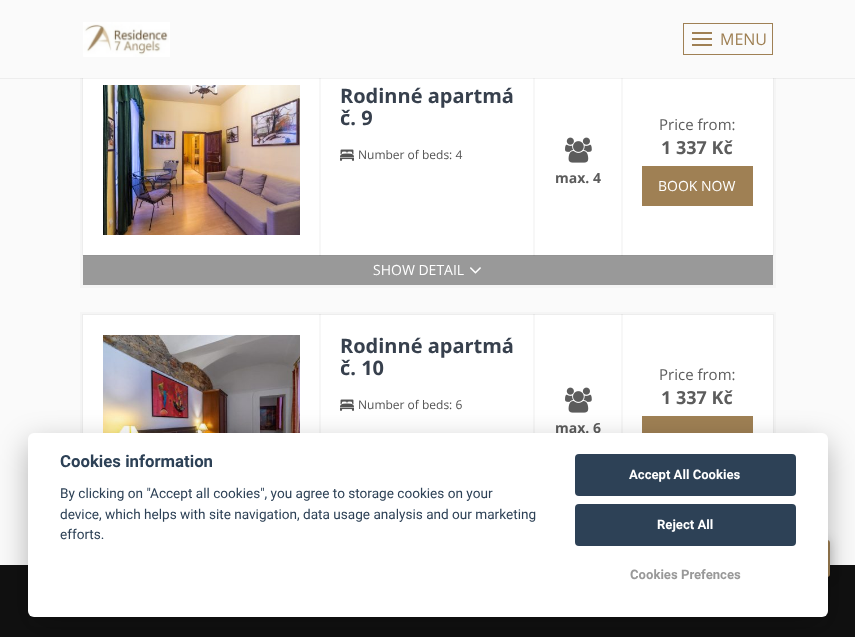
async function draw(canvas) {
  canvas.width = 855
  canvas.height = 637
  const ctx = canvas.getContext('2d')
  ctx.miterLimit = 4
  ctx.fontKerning = 'normal'
  async function loadImage(src) {
    const img = new Image()
    img.src = src
    await img.decode()
    return img
  }

  ctx.fillStyle = '#fafafa'
  ctx.fillRect(0, 0, 855, 637)
  ctx.strokeStyle = '#f5f5f5'
  ctx.lineWidth = 3
  ctx.strokeRect(81.5, 63.5, 693, 223)
  ctx.fillStyle = '#fff'
  ctx.fillRect(83, 78, 690, 177)
  ctx.fillStyle = '#999'
  ctx.fillRect(83, 255, 690, 30)
  ctx.strokeStyle = '#00000008'
  ctx.lineWidth = 1
  ctx.strokeRect(82.5, 64.5, 238, 191)
  ctx.strokeRect(319.5, 64.5, 215, 191)
  ctx.strokeRect(533.5, 64.5, 89, 191)
  ctx.strokeRect(621.5, 64.5, 152, 191)
  ctx.fillStyle = '#0000000d'
  ctx.filter = 'blur(0.5px)'
  ctx.beginPath()
  ctx.rect(0, 1, 855, 78)
  ctx.fill()
  ctx.filter = 'none'
  ctx.fillStyle = '#fafafa'
  ctx.fillRect(0, 1, 855, 77)
  ctx.drawImage(await loadImage('image0.png'), 83, 22, 87, 35)
  ctx.strokeStyle = '#9f8054'
  ctx.strokeRect(683.5, 23.5, 89, 31)
  ctx.fillStyle = '#9f8054'
  ctx.fillRect(692, 38, 20, 2)
  ctx.fillRect(692, 32, 20, 2)
  ctx.fillRect(692, 44, 20, 2)
  ctx.font = '16px Open Sans'
  ctx.fillText('MENU', 720, 45)
  ctx.drawImage(await loadImage('image1.png'), 103, 85, 197, 150)
  ctx.font = 'bold 20px Open Sans'
  ctx.fillStyle = '#37404d'
  ctx.fillText('Rodinné apartmá', 340, 103)
  ctx.fillText('č. 9', 340, 125)
  ctx.drawImage(await loadImage('image2.png'), 340, 149, 14, 12)
  ctx.font = '12px Open Sans'
  ctx.fillStyle = '#535353'
  ctx.fillText('Number of beds: 4', 358, 159)
  ctx.drawImage(await loadImage('image3.png'), 565, 137, 27, 26)
  ctx.font = 'bold 14px Open Sans'
  ctx.fillStyle = '#5c5c5c'
  ctx.fillText('max. 4', 555, 183)
  ctx.font = '15px Open Sans'
  ctx.fillText('Price from:', 659, 130)
  ctx.font = 'bold 18px Open Sans'
  ctx.fillText('1 337 Kč', 661, 154)
  ctx.fillStyle = '#9f8054'
  ctx.fillRect(642, 166, 111, 40)
  ctx.font = '14px Open Sans'
  ctx.fillStyle = '#fff'
  ctx.fillText('BOOK NOW', 658, 191)
  ctx.fillText('SHOW DETAIL', 373, 275)
  ctx.drawImage(await loadImage('image4.png'), 470, 267, 11, 7)
  ctx.strokeStyle = '#f5f5f5'
  ctx.lineWidth = 3
  ctx.strokeRect(81.5, 313.5, 693, 223)
  ctx.fillRect(83, 315, 690, 118)
  ctx.strokeStyle = '#00000008'
  ctx.lineWidth = 1
  ctx.strokeRect(82.5, 314.5, 238, 191)
  ctx.drawImage(await loadImage('image5.png'), 103, 335, 197, 98)
  ctx.strokeRect(319.5, 314.5, 215, 191)
  ctx.font = 'bold 20px Open Sans'
  ctx.fillStyle = '#37404d'
  ctx.fillText('Rodinné apartmá', 340, 353)
  ctx.fillText('č. 10', 340, 375)
  ctx.drawImage(await loadImage('image2.png'), 340, 399, 14, 12)
  ctx.font = '12px Open Sans'
  ctx.fillStyle = '#535353'
  ctx.fillText('Number of beds: 6', 358, 409)
  ctx.strokeRect(533.5, 314.5, 89, 191)
  ctx.strokeRect(621.5, 314.5, 152, 191)
  ctx.font = '15px Open Sans'
  ctx.fillStyle = '#5c5c5c'
  ctx.fillText('Price from:', 659, 380)
  ctx.font = 'bold 18px Open Sans'
  ctx.fillText('1 337 Kč', 661, 404)
  ctx.fillStyle = '#9f8054'
  ctx.fillRect(642, 416, 111, 17)
  ctx.drawImage(await loadImage('image3.png'), 565, 387, 27, 26)
  ctx.font = 'bold 14px Open Sans'
  ctx.fillStyle = '#5c5c5c'
  ctx.fillText('max. 6', 555, 433)
  ctx.fillStyle = '#111'
  ctx.fillRect(0, 565, 855, 72)
  ctx.fillStyle = '#00000033'
  ctx.filter = 'blur(6px)'
  ctx.beginPath()
  ctx.roundRect(796, 540, 34, 37, 3)
  ctx.fill()
  ctx.filter = 'none'
  ctx.fillStyle = '#9f8054'
  ctx.beginPath()
  ctx.roundRect(796, 540, 34, 37, 3)
  ctx.fill()
  ctx.fillStyle = '#02020347'
  ctx.filter = 'blur(15px)'
  ctx.beginPath()
  ctx.roundRect(28, 443, 800, 184, 6)
  ctx.fill()
  ctx.filter = 'none'
  ctx.fillStyle = '#fff'
  ctx.beginPath()
  ctx.roundRect(28, 433, 800, 184, 6)
  ctx.fill()
  ctx.font = 'bold 16.75px Roboto'
  ctx.fillStyle = '#2d4156'
  ctx.fillText('Cookies information', 60, 467)
  ctx.font = '13.6px Roboto'
  ctx.fillText('By clicking on "Accept all cookies", you agree to storage cookies on your', 60, 498)
  ctx.fillText('device, which helps with site navigation, data usage analysis and our marketing', 60, 519)
  ctx.fillText('efforts.', 60, 539)
  ctx.beginPath()
  ctx.roundRect(575, 454, 221, 42, 4)
  ctx.fill()
  ctx.font = 'bold 13.1px Roboto'
  ctx.fillStyle = '#fff'
  ctx.fillText('Accept All Cookies', 629, 479)
  ctx.fillStyle = '#2d4156'
  ctx.beginPath()
  ctx.roundRect(575, 504, 221, 42, 4)
  ctx.fill()
  ctx.fillStyle = '#fff'
  ctx.fillText('Reject All', 657, 529)
  ctx.fillStyle = '#999'
  ctx.fillText('Cookies Prefences', 630, 579)
}

draw(document.querySelector('canvas'))
